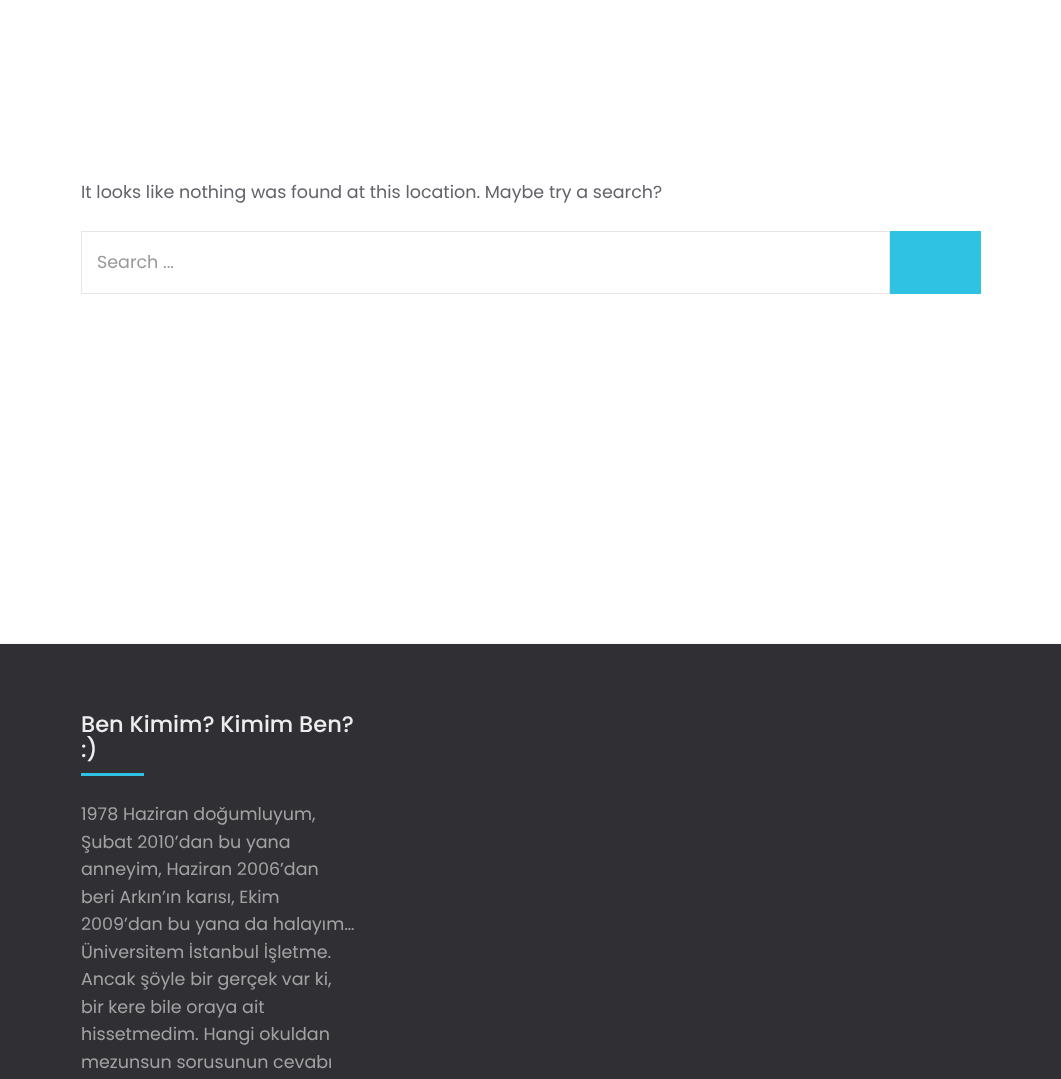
async function draw(canvas) {
  canvas.width = 1061
  canvas.height = 1079
  const ctx = canvas.getContext('2d')
  ctx.miterLimit = 4
  ctx.fontKerning = 'normal'

  ctx.fillStyle = '#fff'
  ctx.fillRect(0, 0, 1061, 1079)
  ctx.font = '17.5px Poppins'
  ctx.fillStyle = '#63636a'
  ctx.fillText('It looks like nothing was found at this location. Maybe try a search?', 81, 198)
  ctx.strokeStyle = '#e5e6e1'
  ctx.strokeRect(81.5, 231.5, 808, 62)
  ctx.fillStyle = '#999'
  ctx.fillText('Search ...', 97, 268)
  ctx.fillStyle = '#2fc2e3'
  ctx.fillRect(890, 231, 91, 63)
  ctx.fillStyle = '#00000021'
  ctx.filter = 'blur(2px)'
  ctx.beginPath()
  ctx.rect(0, 645, 1061, 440)
  ctx.fill()
  ctx.filter = 'none'
  ctx.fillStyle = '#302f34'
  ctx.fillRect(0, 644, 1061, 435)
  ctx.font = '500 22.5px Poppins'
  ctx.fillStyle = '#ededed'
  ctx.fillText('Ben Kimim? Kimim Ben?', 81, 732)
  ctx.fillText(':)', 81, 757)
  ctx.fillStyle = '#2fc2e3'
  ctx.fillRect(81, 773, 63, 3)
  ctx.font = '17.5px Poppins'
  ctx.fillStyle = '#a2a2a2'
  ctx.fillText('1978 Haziran doğumluyum,', 81, 820)
  ctx.fillText('Şubat 2010’dan bu yana', 81, 848)
  ctx.fillText('anneyim, Haziran 2006’dan', 81, 875)
  ctx.fillText('beri Arkın’ın karısı, Ekim', 81, 903)
  ctx.fillText('2009’dan bu yana da halayım…', 81, 930)
  ctx.fillText('Üniversitem İstanbul İşletme.', 81, 958)
  ctx.fillText('Ancak şöyle bir gerçek var ki,', 81, 985)
  ctx.fillText('bir kere bile oraya ait', 81, 1013)
  ctx.fillText('hissetmedim. Hangi okuldan', 81, 1040)
  ctx.fillText('mezunsun sorusunun cevabı', 81, 1068)
}

draw(document.querySelector('canvas'))
